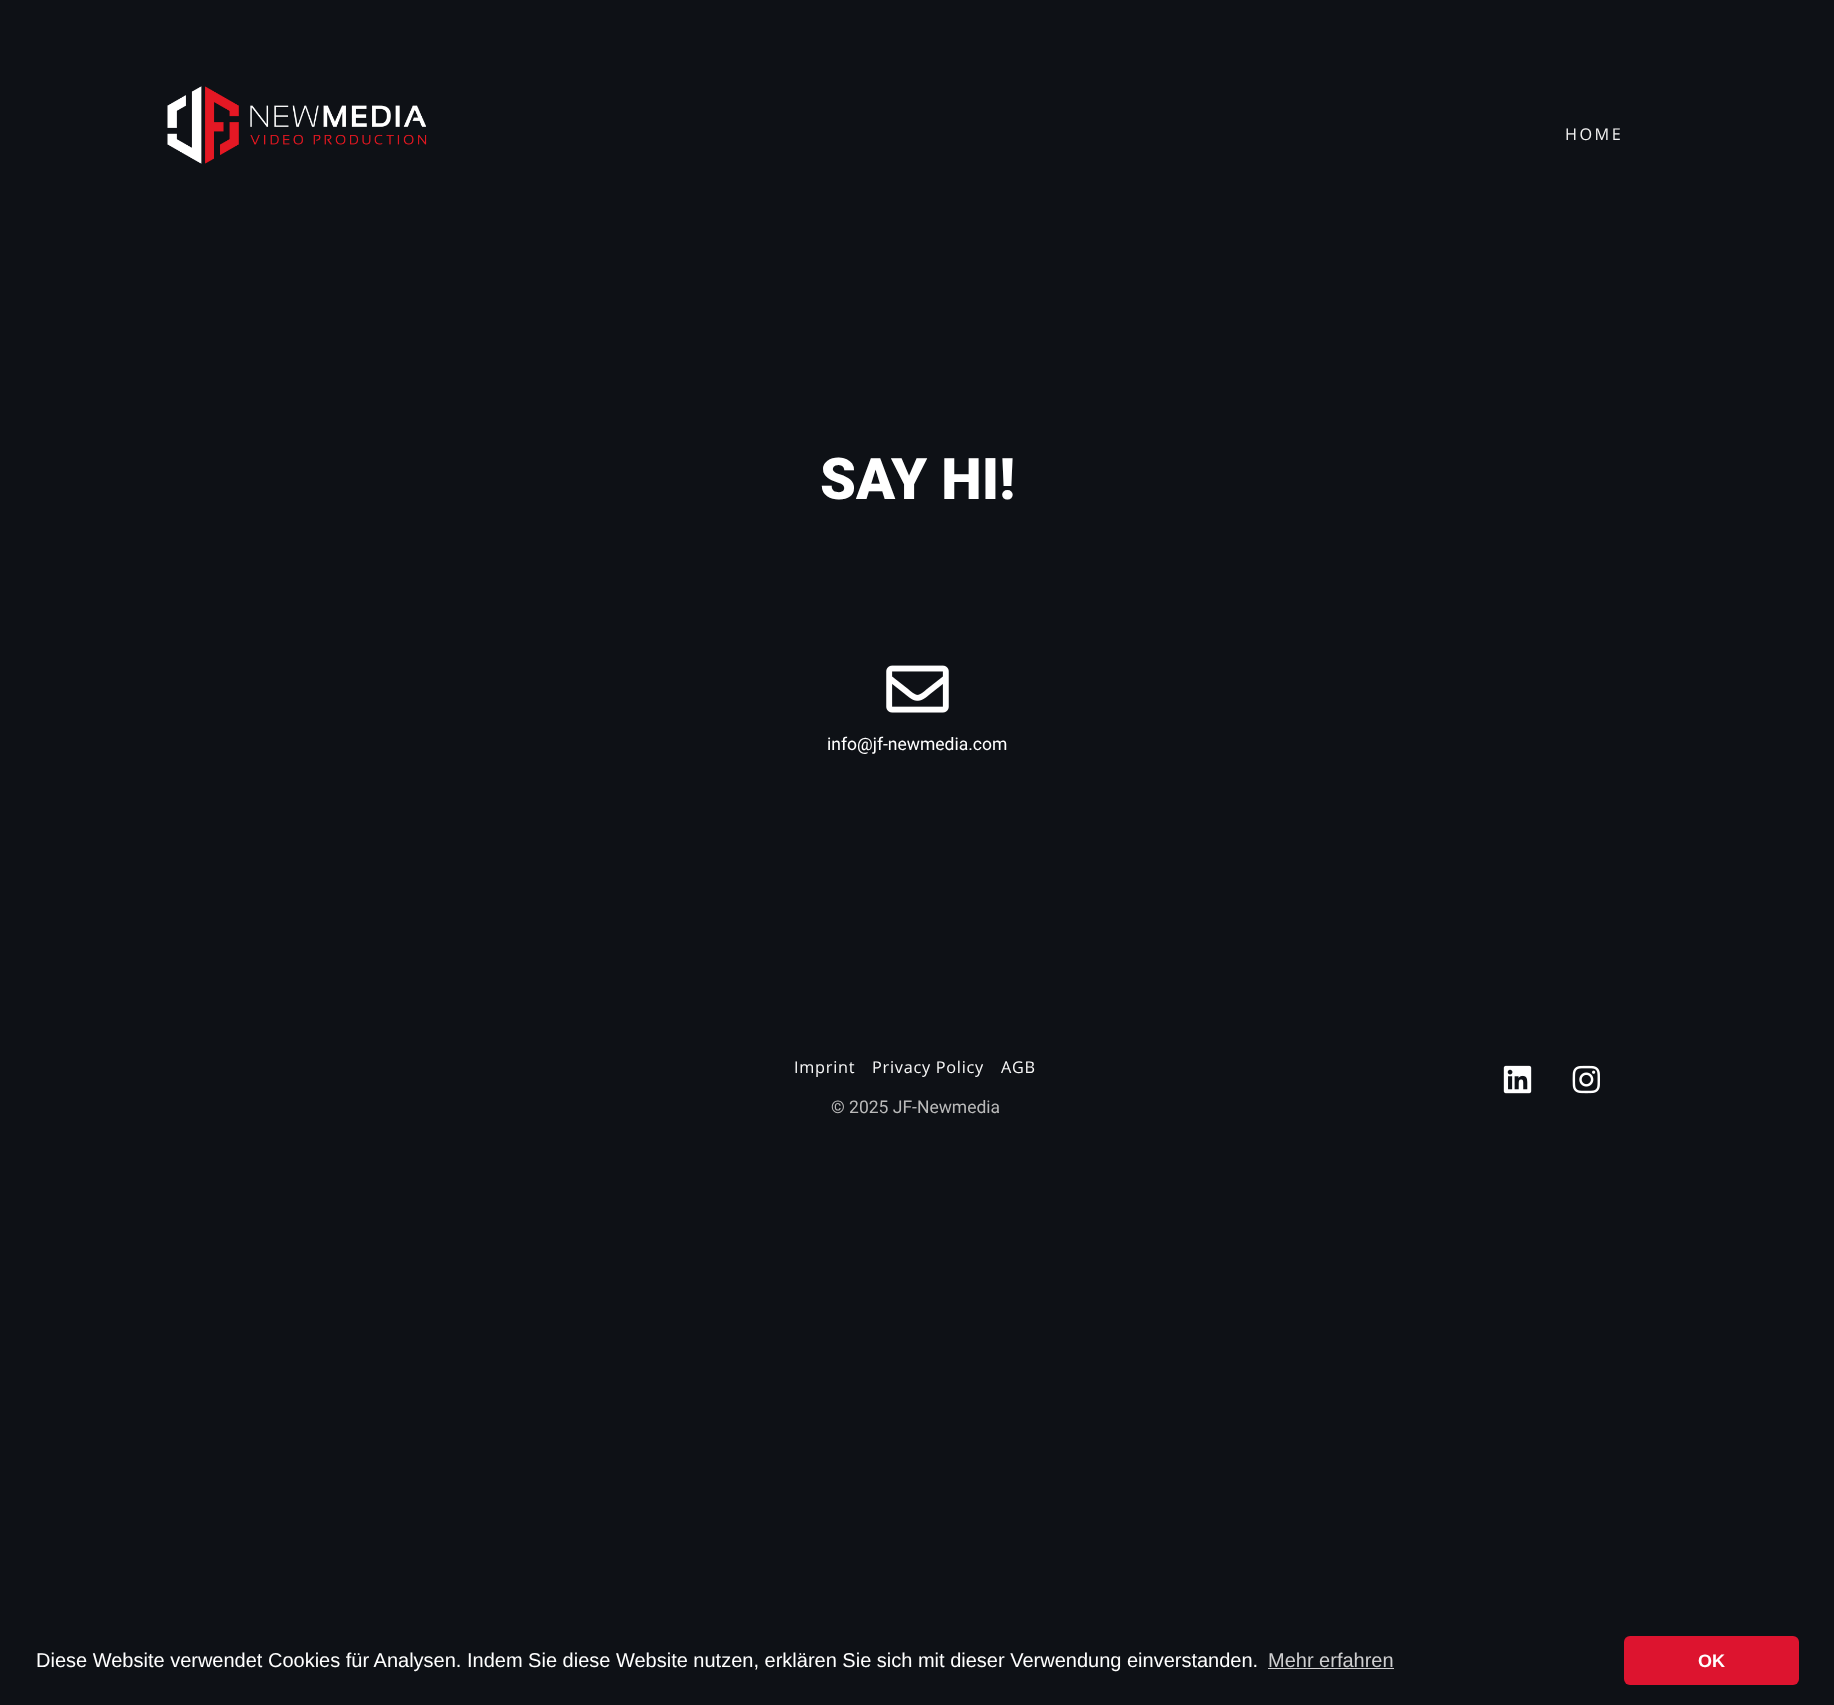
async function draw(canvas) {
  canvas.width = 1834
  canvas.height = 1705
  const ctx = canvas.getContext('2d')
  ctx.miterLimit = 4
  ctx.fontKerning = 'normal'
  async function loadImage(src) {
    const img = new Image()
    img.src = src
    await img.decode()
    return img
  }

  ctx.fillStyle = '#0e1116'
  ctx.fillRect(0, 0, 1834, 1705)
  ctx.drawImage(await loadImage('image0.png'), 167, 86, 260, 78)
  ctx.letterSpacing = '2.5px'
  ctx.font = '16.25px Open Sans'
  ctx.fillStyle = '#f2f2f2'
  ctx.fillText('HOME', 1565, 140)
  ctx.letterSpacing = '0px'
  ctx.font = '900 57.5px Roboto'
  ctx.fillStyle = '#fff'
  ctx.fillText('SAY HI!', 820, 499)
  ctx.drawImage(await loadImage('image1.png'), 886, 665, 63, 48)
  ctx.font = '17.5px Roboto'
  ctx.fillText('info@jf-newmedia.com', 827, 750)
  ctx.letterSpacing = '0.75px'
  ctx.font = '16.25px Open Sans'
  ctx.fillStyle = '#f9f9f9'
  ctx.fillText('Imprint', 794, 1073)
  ctx.fillText('Privacy Policy', 872, 1073)
  ctx.fillText('AGB', 1001, 1073)
  ctx.letterSpacing = '0px'
  ctx.font = '17.5px Roboto'
  ctx.fillStyle = '#bababa'
  ctx.fillText('© 2025 JF-Newmedia', 831, 1113)
  ctx.drawImage(await loadImage('image2.png'), 1503, 1065, 29, 29)
  ctx.drawImage(await loadImage('image3.png'), 1572, 1065, 28, 29)
  ctx.font = '20px Liberation Sans'
  ctx.fillStyle = '#fff'
  ctx.fillText('Diese Website verwendet Cookies für Analysen. Indem Sie diese Website nutzen, erklären Sie sich mit dieser Verwendung einverstanden.', 36, 1667)
  ctx.fillStyle = '#cfcfd0'
  ctx.fillText('Mehr erfahren', 1268, 1667)
  ctx.fillRect(1268, 1668, 126, 1)
  ctx.fillStyle = '#dd142f'
  ctx.beginPath()
  ctx.roundRect(1624, 1636, 175, 49, 6)
  ctx.fill()
  ctx.font = 'bold 18px Liberation Sans'
  ctx.fillStyle = '#fff'
  ctx.fillText('OK', 1698, 1667)
}

draw(document.querySelector('canvas'))
